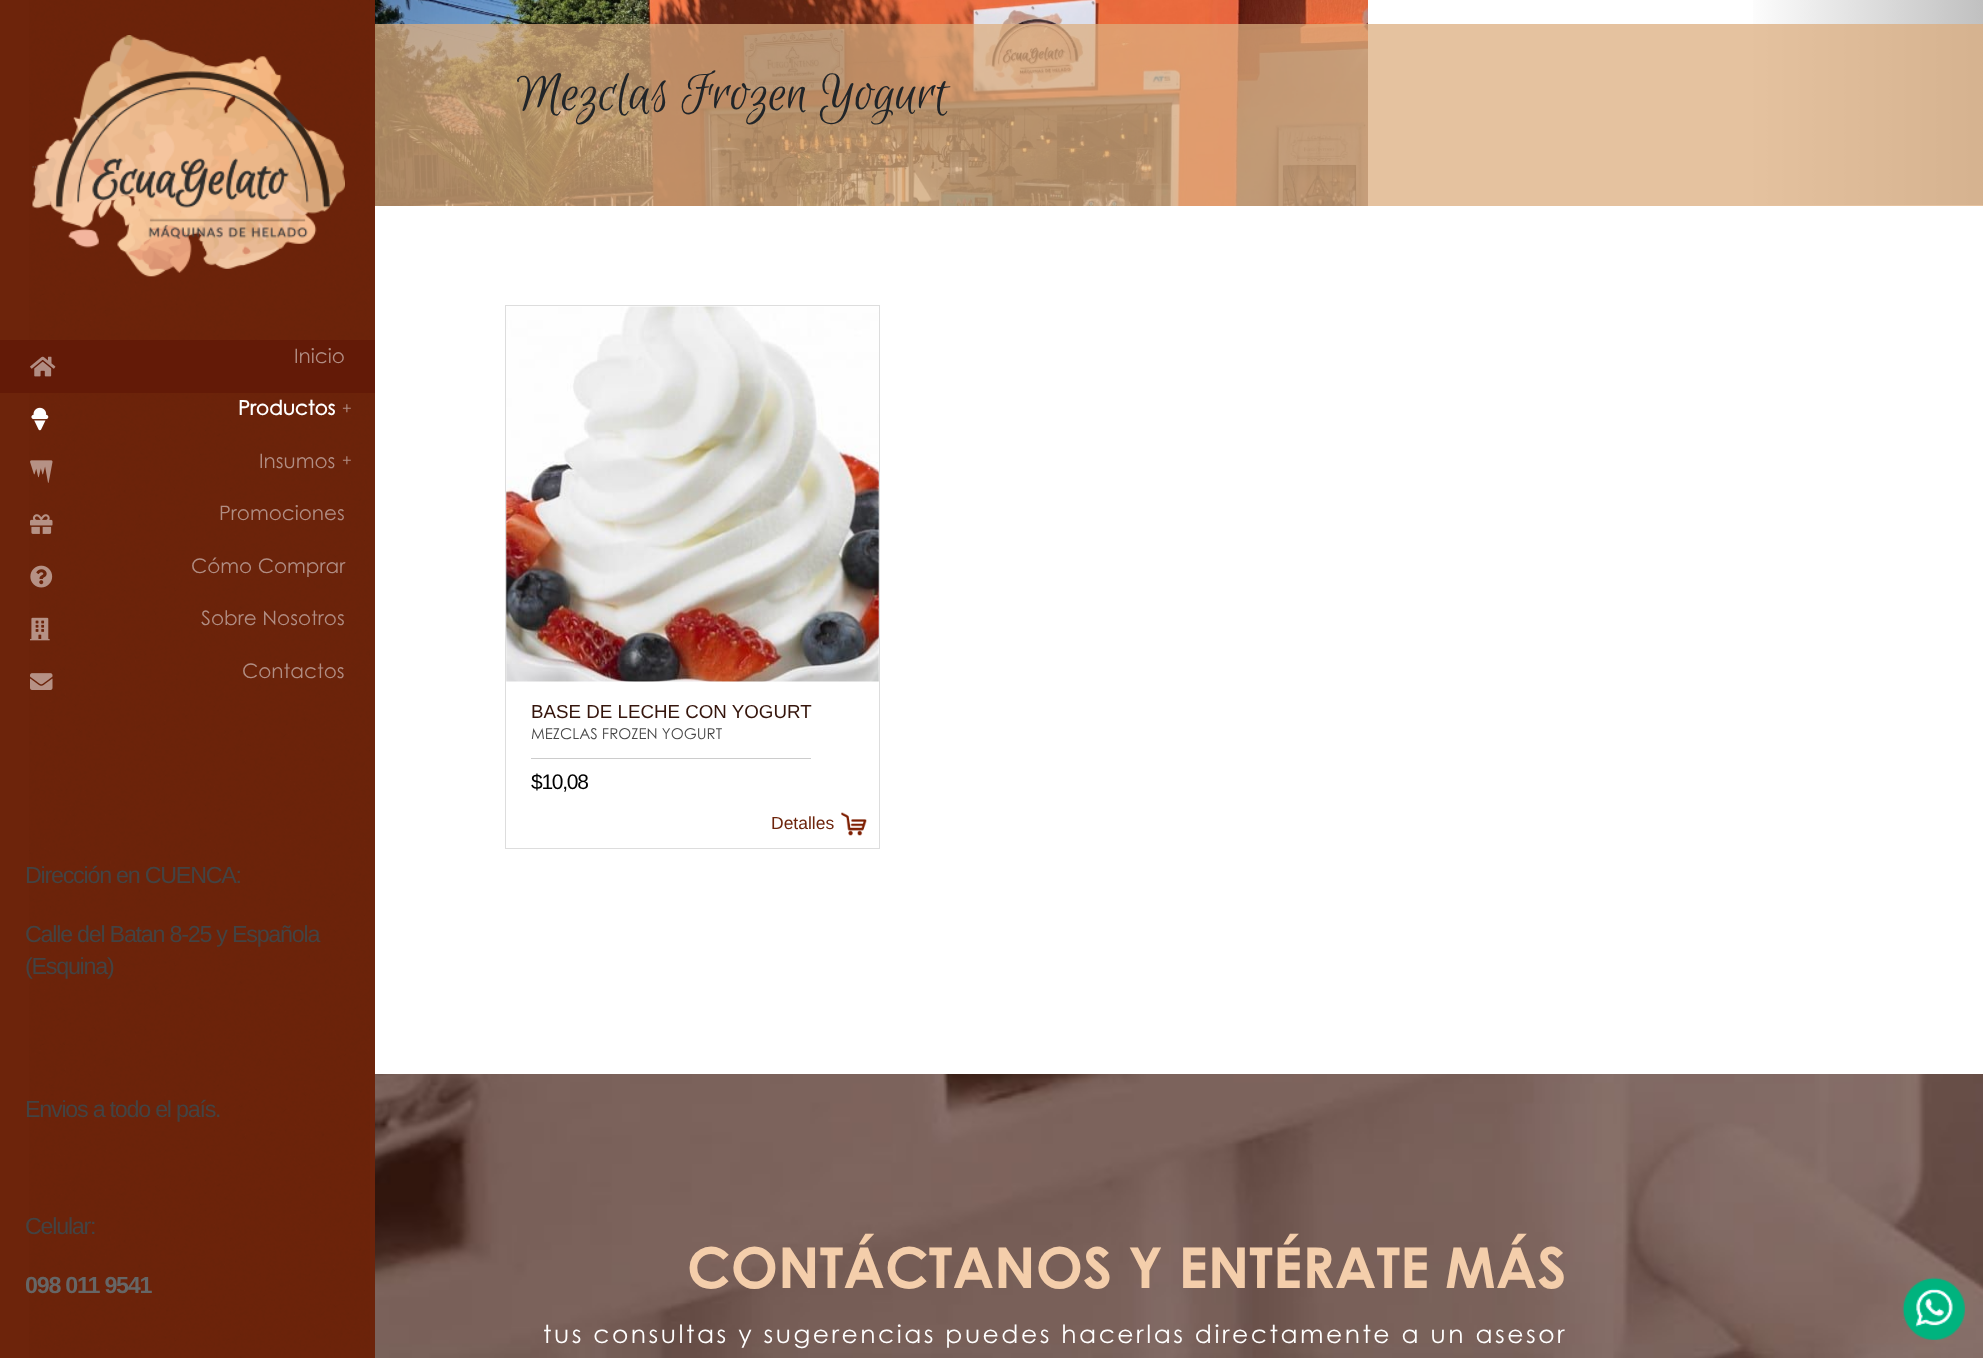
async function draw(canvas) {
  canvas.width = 1983
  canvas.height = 1358
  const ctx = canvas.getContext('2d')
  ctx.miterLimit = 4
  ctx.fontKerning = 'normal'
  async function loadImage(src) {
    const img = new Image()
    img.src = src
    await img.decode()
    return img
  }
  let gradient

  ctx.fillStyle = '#fff'
  ctx.fillRect(0, 0, 1983, 1358)
  ctx.fillStyle = '#6d240b'
  ctx.fillRect(0, 0, 375, 1358)
  ctx.drawImage(await loadImage('image0.png'), 29, 0, 341, 1358)
  ctx.beginPath()
  ctx.moveTo(32.5, 167)
  ctx.lineTo(345, 167)
  ctx.strokeStyle = '#80808080'
  ctx.lineWidth = 1.2
  ctx.setLineDash([1.25, 1.25])
  ctx.stroke()
  ctx.drawImage(await loadImage('image1.png'), 32, 35, 313, 242)
  ctx.fillStyle = '#631a07'
  ctx.fillRect(0, 340, 375, 53)
  ctx.drawImage(await loadImage('image2.png'), 30, 356, 26, 21)
  ctx.font = '20px Century Gothic'
  ctx.fillStyle = '#b18d83'
  ctx.fillText('Inicio', 294, 363)
  ctx.drawImage(await loadImage('image3.png'), 31, 407, 18, 24)
  ctx.font = 'bold 20px "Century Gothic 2"'
  ctx.fillStyle = '#fff'
  ctx.fillText('Productos', 238, 415)
  ctx.font = '16px Century Gothic'
  ctx.fillStyle = '#b18d83'
  ctx.fillText('+', 342, 414)
  ctx.drawImage(await loadImage('image4.png'), 30, 460, 23, 23)
  ctx.font = '20px Century Gothic'
  ctx.fillText('Insumos', 259, 468)
  ctx.font = '16px Century Gothic'
  ctx.fillText('+', 342, 466)
  ctx.drawImage(await loadImage('image5.png'), 30, 514, 23, 20)
  ctx.font = '20px Century Gothic'
  ctx.fillText('Promociones', 219, 520)
  ctx.drawImage(await loadImage('image6.png'), 30, 565, 23, 23)
  ctx.fillText('Cómo Comprar', 191, 573)
  ctx.drawImage(await loadImage('image7.png'), 30, 617, 20, 24)
  ctx.fillText('Sobre Nosotros', 201, 625)
  ctx.fillText('Contactos', 242, 678)
  ctx.drawImage(await loadImage('image8.png'), 30, 673, 23, 17)
  ctx.letterSpacing = '-1.25px'
  ctx.font = '23.3px Liberation Sans'
  ctx.fillStyle = '#434343'
  ctx.fillText('Dirección en CUENCA:', 25, 883)
  ctx.fillText('Calle del Batan 8-25 y Española', 25, 942)
  ctx.fillText('(Esquina)', 25, 974)
  ctx.fillText('Envios a todo el país.', 25, 1117)
  ctx.fillText('Celular:', 25, 1234)
  ctx.font = 'bold 23.3px Liberation Sans'
  ctx.fillStyle = '#666'
  ctx.fillText('098 011 9541', 25, 1293)
  ctx.drawImage(await loadImage('image9.png'), 375, 0, 993, 206)
  gradient = ctx.createLinearGradient(1743, 268, 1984, 268)
  gradient.addColorStop(0, '#fff')
  gradient.addColorStop(1, '#c0c0c0')
  ctx.fillStyle = gradient
  ctx.fillRect(1753, 0, 230, 205)
  ctx.fillStyle = '#dcae7fbf'
  ctx.fillRect(375, 24, 1608, 182)
  ctx.letterSpacing = '0px'
  ctx.font = '58px Euphoria Script'
  ctx.fillStyle = '#212529'
  ctx.fillText('Mezclas Frozen Yogurt', 517, 109)
  ctx.strokeStyle = '#ddd'
  ctx.lineWidth = 1
  ctx.setLineDash([])
  ctx.strokeRect(505.5, 305.5, 374, 543)
  ctx.drawImage(await loadImage('image10.png'), 506, 306, 373, 376)
  ctx.font = '18.75px Liberation Sans'
  ctx.fillStyle = '#35150c'
  ctx.fillText('BASE DE LECHE CON YOGURT', 531, 718)
  ctx.font = '15px Century Gothic'
  ctx.fillStyle = '#494949'
  ctx.fillText('MEZCLAS FROZEN YOGURT', 531, 739)
  ctx.fillStyle = '#ccc'
  ctx.fillRect(531, 758, 280, 1)
  ctx.letterSpacing = '-1.25px'
  ctx.font = '21px Liberation Sans'
  ctx.fillStyle = '#000'
  ctx.fillText('$10,08', 531, 789)
  ctx.letterSpacing = '0px'
  ctx.font = '17.5px Liberation Sans'
  ctx.fillStyle = '#6d240b'
  ctx.fillText('Detalles', 771, 829)
  ctx.drawImage(await loadImage('image11.png'), 841, 812, 26, 24)
  ctx.drawImage(await loadImage('image12.png'), 375, 1074, 1608, 284)
  ctx.font = 'bold 56.25px Century Gothic'
  ctx.fillStyle = '#f4ceab'
  ctx.fillText('CONTÁCTANOS Y ENTÉRATE MÁS', 687, 1288)
  ctx.letterSpacing = '2.5px'
  ctx.font = '25px Century Gothic'
  ctx.fillStyle = '#fff'
  ctx.fillText('tus consultas y sugerencias puedes hacerlas directamente a un asesor', 543, 1343)
  ctx.beginPath()
  ctx.moveTo(1902.5, 1319.5)
  ctx.lineTo(1965, 1319.5)
  ctx.strokeStyle = '#80808080'
  ctx.lineWidth = 1.2
  ctx.setLineDash([1.25, 1.25])
  ctx.stroke()
  ctx.drawImage(await loadImage('image13.png'), 1902, 1277, 63, 63)
}

draw(document.querySelector('canvas'))
